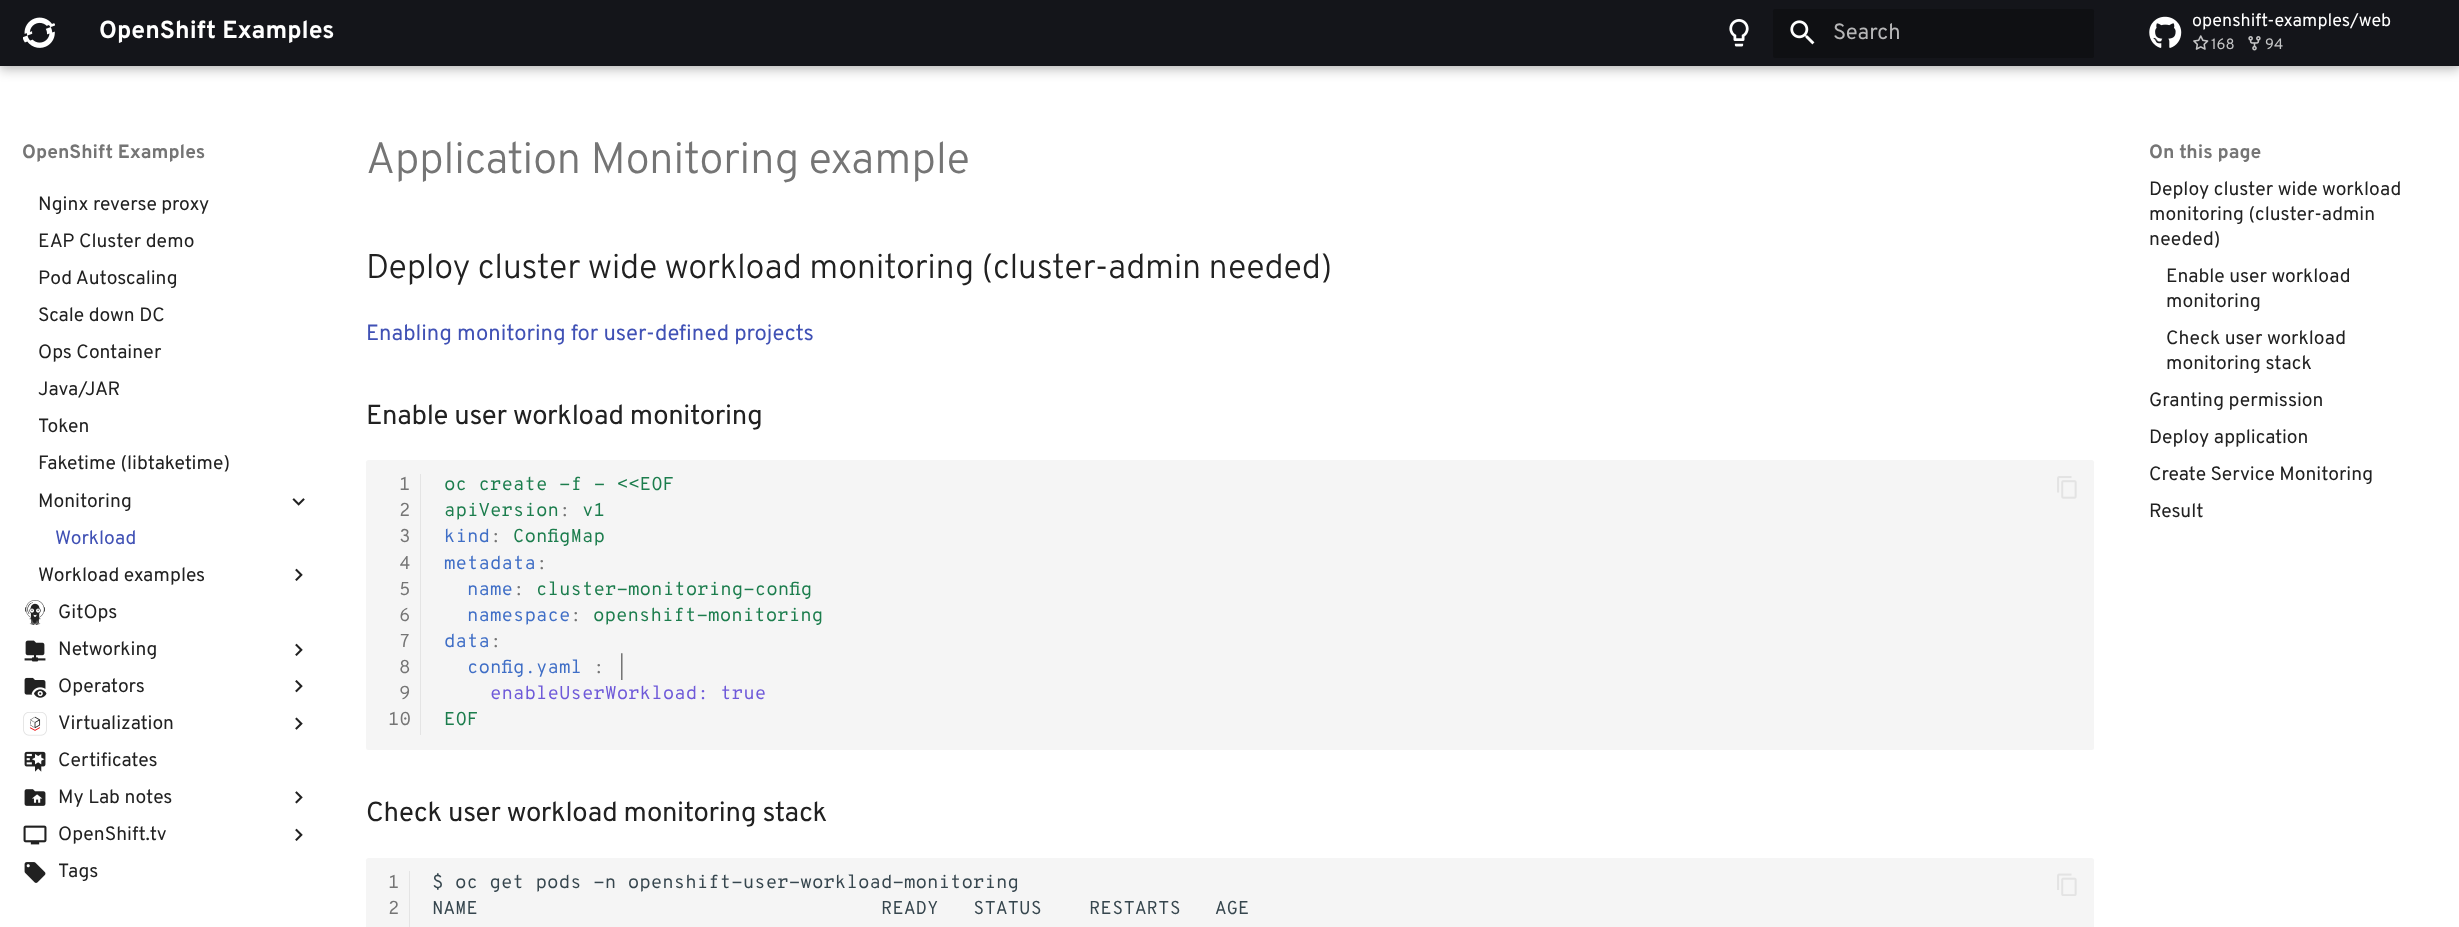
async function draw(canvas) {
  canvas.width = 2459
  canvas.height = 927
  const ctx = canvas.getContext('2d')
  ctx.miterLimit = 4
  ctx.fontKerning = 'normal'
  async function loadImage(src) {
    const img = new Image()
    img.src = src
    await img.decode()
    return img
  }

  ctx.fillStyle = '#fff'
  ctx.fillRect(0, 0, 2459, 927)
  ctx.fillStyle = '#00000033'
  ctx.filter = 'blur(5.5px)'
  ctx.beginPath()
  ctx.rect(0, 5, 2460, 66)
  ctx.fill()
  ctx.filter = 'none'
  ctx.fillStyle = '#0000001a'
  ctx.filter = 'blur(3px)'
  ctx.beginPath()
  ctx.rect(0, 0, 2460, 66)
  ctx.fill()
  ctx.filter = 'none'
  ctx.fillStyle = '#14151a'
  ctx.fillRect(0, 0, 2459, 66)
  ctx.drawImage(await loadImage('image0.png'), 23, 17, 32, 31)
  ctx.font = 'bold 24.75px Overpass'
  ctx.fillStyle = '#fff'
  ctx.fillText('OpenShift Examples', 99, 38)
  ctx.drawImage(await loadImage('image1.png'), 1729, 19, 20, 28)
  ctx.fillStyle = '#0f1013'
  ctx.beginPath()
  ctx.roundRect(1773, 9, 321, 49, 2.5)
  ctx.fill()
  ctx.drawImage(await loadImage('image2.png'), 1790, 20, 25, 25)
  ctx.font = '22px Overpass'
  ctx.fillStyle = '#b7b7b8'
  ctx.fillText('Search', 1833, 39)
  ctx.drawImage(await loadImage('image3.png'), 2149, 16, 33, 32)
  ctx.font = '17.9px Overpass'
  ctx.fillStyle = '#fff'
  ctx.fillText('openshift-examples/web', 2192, 26)
  ctx.drawImage(await loadImage('image4.png'), 2193, 35, 16, 15)
  ctx.font = '15px Overpass'
  ctx.fillStyle = '#c4c5c6'
  ctx.fillText('168', 2211, 49)
  ctx.drawImage(await loadImage('image5.png'), 2248, 36, 13, 15)
  ctx.fillText('94', 2265, 49)
  ctx.font = 'bold 19.25px Overpass'
  ctx.fillStyle = '#757575'
  ctx.fillText('OpenShift Examples', 22, 158)
  ctx.font = '19.25px Overpass'
  ctx.fillStyle = '#212121'
  ctx.fillText('Nginx reverse proxy', 38, 210)
  ctx.fillText('EAP Cluster demo', 38, 247)
  ctx.fillText('Pod Autoscaling', 38, 284)
  ctx.fillText('Scale down DC', 38, 321)
  ctx.fillText('Ops Container', 38, 358)
  ctx.fillText('Java/JAR', 38, 395)
  ctx.fillText('Token', 38, 432)
  ctx.fillText('Faketime (libtaketime)', 38, 469)
  ctx.fillText('Monitoring', 38, 507)
  ctx.drawImage(await loadImage('image6.png'), 292, 498, 13, 8)
  ctx.fillStyle = '#4051b5'
  ctx.fillText('Workload', 55, 544)
  ctx.fillStyle = '#212121'
  ctx.fillText('Workload examples', 38, 581)
  ctx.drawImage(await loadImage('image7.png'), 295, 568, 8, 13)
  ctx.drawImage(await loadImage('image8.png'), 25, 600, 20, 25)
  ctx.fillText('GitOps', 58, 618)
  ctx.drawImage(await loadImage('image9.png'), 24, 640, 22, 22)
  ctx.fillText('Networking', 58, 655)
  ctx.drawImage(await loadImage('image7.png'), 295, 643, 8, 13)
  ctx.drawImage(await loadImage('image10.png'), 24, 677, 23, 21)
  ctx.fillText('Operators', 58, 692)
  ctx.drawImage(await loadImage('image11.png'), 295, 680, 8, 13)
  ctx.drawImage(await loadImage('image12.png'), 23, 712, 24, 24)
  ctx.fillText('Virtualization', 58, 729)
  ctx.drawImage(await loadImage('image13.png'), 295, 717, 8, 13)
  ctx.drawImage(await loadImage('image14.png'), 24, 751, 22, 21)
  ctx.fillText('Certificates', 58, 766)
  ctx.drawImage(await loadImage('image15.png'), 24, 789, 22, 17)
  ctx.fillText('My Lab notes', 58, 803)
  ctx.drawImage(await loadImage('image16.png'), 295, 791, 8, 13)
  ctx.drawImage(await loadImage('image17.png'), 23, 825, 24, 20)
  ctx.fillText('OpenShift.tv', 58, 840)
  ctx.drawImage(await loadImage('image7.png'), 295, 828, 8, 13)
  ctx.drawImage(await loadImage('image18.png'), 24, 862, 22, 21)
  ctx.fillText('Tags', 58, 877)
  ctx.letterSpacing = '-0.45px'
  ctx.font = '300 44px Overpass'
  ctx.fillStyle = '#757575'
  ctx.fillText('Application Monitoring example', 366, 173)
  ctx.letterSpacing = '-0.35px'
  ctx.font = '300 34.4px Overpass'
  ctx.fillStyle = '#212121'
  ctx.fillText('Deploy cluster wide workload monitoring (cluster-admin needed)', 366, 278)
  ctx.letterSpacing = '0px'
  ctx.font = '22px Overpass'
  ctx.fillStyle = '#4051b5'
  ctx.fillText('Enabling monitoring for user-defined projects', 366, 340)
  ctx.letterSpacing = '-0.3px'
  ctx.font = '27.5px Overpass'
  ctx.fillStyle = '#212121'
  ctx.fillText('Enable user workload monitoring', 366, 424)
  ctx.fillStyle = '#f5f5f5'
  ctx.beginPath()
  ctx.roundRect(366, 460, 55, 290, [2.5, 0, 0, 2.5])
  ctx.fill()
  ctx.fillStyle = '#e4e4e4'
  ctx.fillRect(420, 474, 1, 261)
  ctx.letterSpacing = '0px'
  ctx.font = '18.7px Overpass Mono'
  ctx.fillStyle = '#757575'
  ctx.fillText('1', 399, 490)
  ctx.fillText('2', 399, 516)
  ctx.fillText('3', 399, 542)
  ctx.fillText('4', 399, 569)
  ctx.fillText('5', 399, 595)
  ctx.fillText('6', 399, 621)
  ctx.fillText('7', 399, 647)
  ctx.fillText('8', 399, 673)
  ctx.fillText('9', 399, 699)
  ctx.fillText('10', 388, 725)
  ctx.fillStyle = '#f5f5f5'
  ctx.beginPath()
  ctx.roundRect(421, 460, 1673, 290, [0, 2.5, 2.5, 0])
  ctx.fill()
  ctx.fillStyle = '#1c7d4d'
  ctx.fillText('oc create -f - <<EOF', 444, 490)
  ctx.fillText('apiVersion', 444, 516)
  ctx.fillStyle = '#757575'
  ctx.fillText(':', 559, 516)
  ctx.fillStyle = '#1c7d4d'
  ctx.fillText('v1', 582, 516)
  ctx.fillStyle = '#3f6ec6'
  ctx.fillText('kind', 444, 542)
  ctx.fillStyle = '#757575'
  ctx.fillText(':', 490, 542)
  ctx.fillStyle = '#1c7d4d'
  ctx.fillText('ConfigMap', 513, 542)
  ctx.fillStyle = '#3f6ec6'
  ctx.fillText('metadata', 444, 569)
  ctx.fillStyle = '#757575'
  ctx.fillText(':', 536, 569)
  ctx.fillStyle = '#3f6ec6'
  ctx.fillText('name', 467, 595)
  ctx.fillStyle = '#757575'
  ctx.fillText(':', 513, 595)
  ctx.fillStyle = '#1c7d4d'
  ctx.fillText('cluster-monitoring-config', 536, 595)
  ctx.fillStyle = '#3f6ec6'
  ctx.fillText('namespace', 467, 621)
  ctx.fillStyle = '#757575'
  ctx.fillText(':', 570, 621)
  ctx.fillStyle = '#1c7d4d'
  ctx.fillText('openshift-monitoring', 593, 621)
  ctx.fillStyle = '#3f6ec6'
  ctx.fillText('data', 444, 647)
  ctx.fillStyle = '#757575'
  ctx.fillText(':', 490, 647)
  ctx.fillStyle = '#3f6ec6'
  ctx.fillText('config.yaml', 467, 673)
  ctx.fillStyle = '#757575'
  ctx.fillText(': |', 593, 673)
  ctx.fillStyle = '#6e59d9'
  ctx.fillText('enableUserWorkload: true', 490, 699)
  ctx.fillStyle = '#1c7d4d'
  ctx.fillText('EOF', 444, 725)
  ctx.drawImage(await loadImage('image19.png'), 2057, 476, 20, 23)
  ctx.letterSpacing = '-0.3px'
  ctx.font = '27.5px Overpass'
  ctx.fillStyle = '#212121'
  ctx.fillText('Check user workload monitoring stack', 366, 821)
  ctx.fillStyle = '#f5f5f5'
  ctx.beginPath()
  ctx.moveTo(368.5, 858)
  ctx.lineTo(410, 858)
  ctx.lineTo(410, 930)
  ctx.lineTo(368.5, 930)
  ctx.bezierCurveTo(367, 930, 366, 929, 366, 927.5)
  ctx.lineTo(366, 860.5)
  ctx.bezierCurveTo(366, 859, 367, 858, 368.5, 858)
  ctx.closePath()
  ctx.fill()
  ctx.fillStyle = '#e4e4e4'
  ctx.fillRect(409, 871, 1, 56)
  ctx.letterSpacing = '0px'
  ctx.font = '18.7px Overpass Mono'
  ctx.fillStyle = '#757575'
  ctx.fillText('1', 388, 888)
  ctx.fillText('2', 388, 914)
  ctx.fillStyle = '#f5f5f5'
  ctx.beginPath()
  ctx.moveTo(410, 858)
  ctx.lineTo(2091.5, 858)
  ctx.bezierCurveTo(2093, 858, 2094, 859, 2094, 860.5)
  ctx.lineTo(2094, 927.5)
  ctx.bezierCurveTo(2094, 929, 2093, 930, 2091.5, 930)
  ctx.lineTo(410, 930)
  ctx.closePath()
  ctx.fill()
  ctx.fillStyle = '#36464e'
  ctx.fillText('$ oc get pods -n openshift-user-workload-monitoring', 432, 888)
  ctx.fillText('NAME', 432, 914)
  ctx.fillText('READY', 881, 914)
  ctx.fillText('STATUS', 973, 914)
  ctx.fillText('RESTARTS', 1089, 914)
  ctx.fillText('AGE', 1215, 914)
  ctx.drawImage(await loadImage('image20.png'), 2057, 873, 20, 23)
  ctx.save()
  ctx.beginPath()
  ctx.rect(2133, 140, 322, 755)
  ctx.clip()
  ctx.beginPath()
  ctx.moveTo(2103, 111)
  ctx.lineTo(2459, 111)
  ctx.lineTo(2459, 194)
  ctx.lineTo(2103, 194)
  ctx.closePath()
  ctx.moveTo(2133, 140)
  ctx.lineTo(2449, 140)
  ctx.lineTo(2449, 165)
  ctx.lineTo(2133, 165)
  ctx.closePath()
  ctx.clip('evenodd')
  ctx.fillStyle = '#fff'
  ctx.filter = 'blur(5.5px)'
  ctx.beginPath()
  ctx.rect(2121, 129, 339, 47)
  ctx.fill()
  ctx.filter = 'none'
  ctx.restore()
  ctx.font = 'bold 19.25px Overpass'
  ctx.fillStyle = '#757575'
  ctx.fillText('On this page', 2149, 158)
  ctx.font = '19.25px Overpass'
  ctx.fillStyle = '#212121'
  ctx.fillText('Deploy cluster wide workload', 2149, 195)
  ctx.fillText('monitoring (cluster-admin', 2149, 220)
  ctx.fillText('needed)', 2149, 245)
  ctx.fillText('Enable user workload', 2166, 282)
  ctx.fillText('monitoring', 2166, 307)
  ctx.fillText('Check user workload', 2166, 344)
  ctx.fillText('monitoring stack', 2166, 369)
  ctx.fillText('Granting permission', 2149, 406)
  ctx.fillText('Deploy application', 2149, 443)
  ctx.fillText('Create Service Monitoring', 2149, 480)
  ctx.fillText('Result', 2149, 517)
}

draw(document.querySelector('canvas'))
